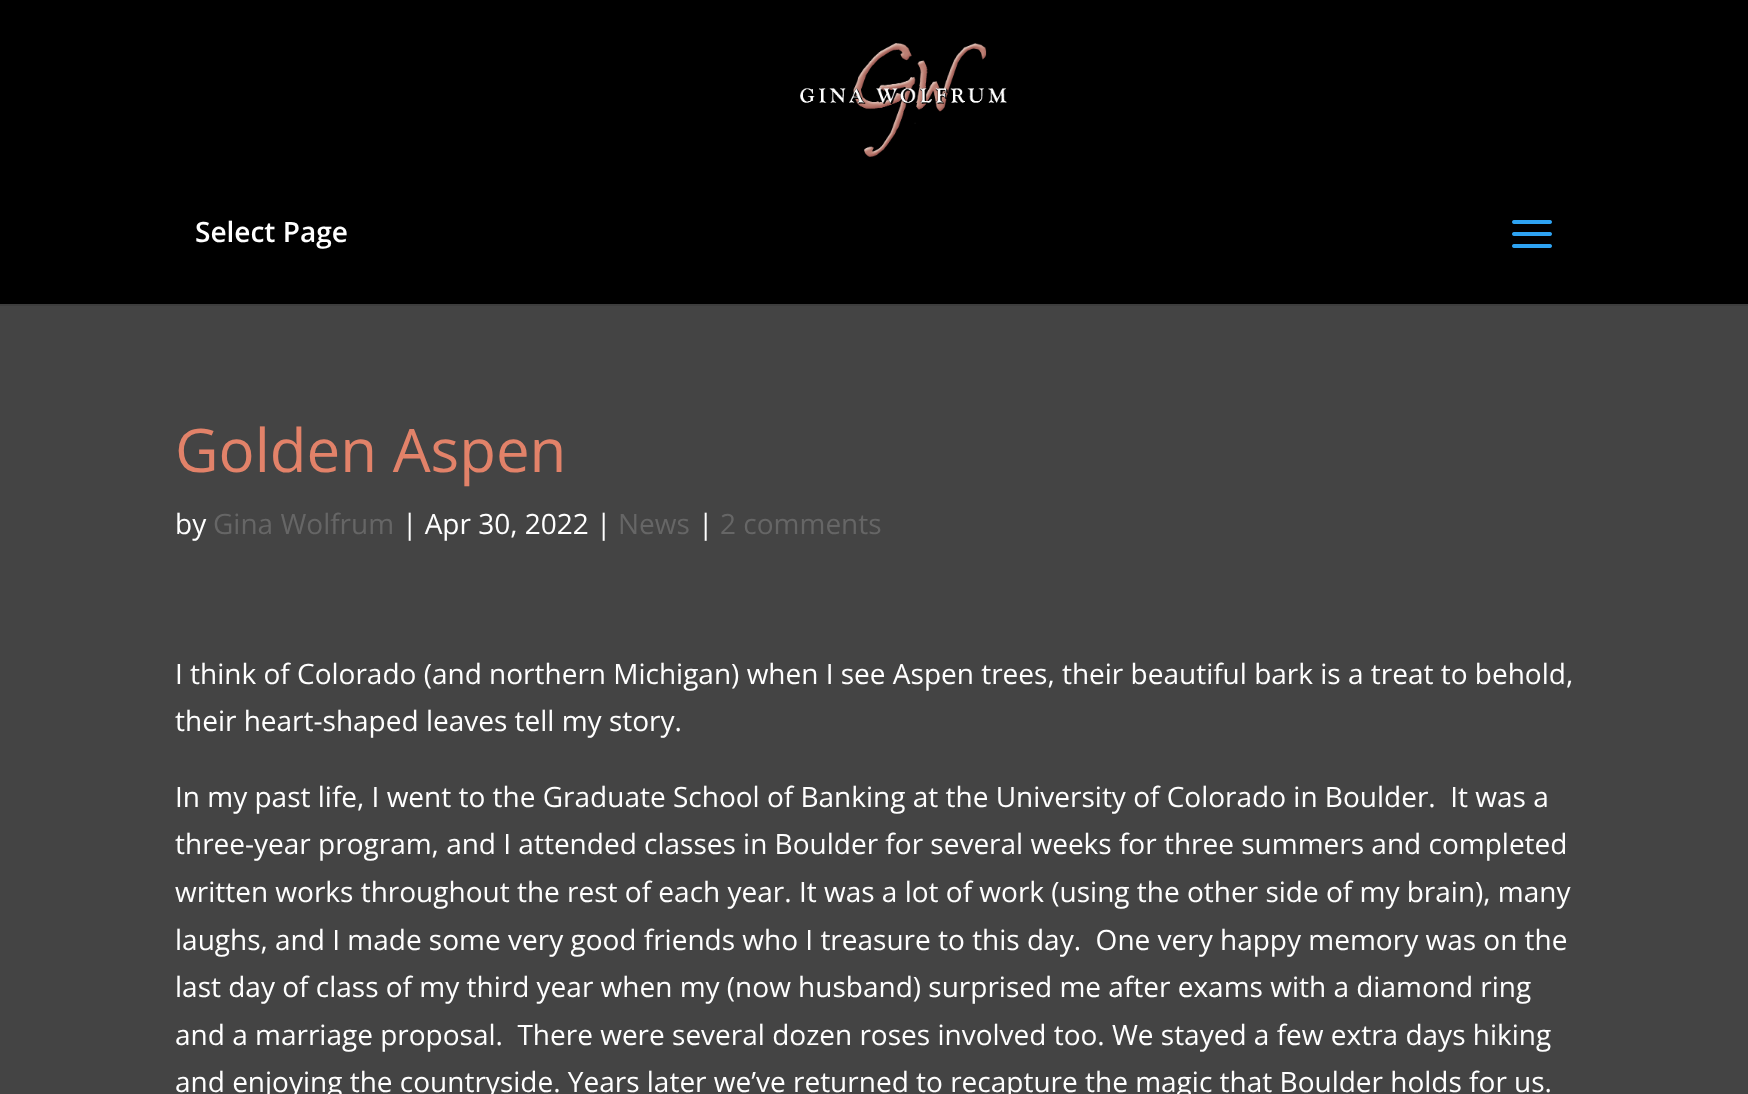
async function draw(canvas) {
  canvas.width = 1748
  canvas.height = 1094
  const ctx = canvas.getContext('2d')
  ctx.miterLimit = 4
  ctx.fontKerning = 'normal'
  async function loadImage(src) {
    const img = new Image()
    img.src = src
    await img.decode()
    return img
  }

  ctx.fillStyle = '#444'
  ctx.fillRect(0, 0, 1748, 1094)
  ctx.fillStyle = '#3d3d3d'
  ctx.fillRect(0, 304, 1748, 2)
  ctx.fillStyle = '#000'
  ctx.fillRect(0, 0, 1748, 304)
  ctx.drawImage(await loadImage('image0.png'), 800, 43, 207, 114)
  ctx.font = '600 28px Open Sans'
  ctx.fillStyle = '#fff'
  ctx.fillText('Select Page', 195, 242)
  ctx.drawImage(await loadImage('image1.png'), 1512, 220, 40, 28)
  ctx.font = '60px Open Sans'
  ctx.fillStyle = '#e28269'
  ctx.fillText('Golden Aspen', 175, 472)
  ctx.font = '28px Open Sans'
  ctx.fillStyle = '#fff'
  ctx.fillText('by', 175, 534)
  ctx.fillStyle = '#666'
  ctx.fillText('Gina Wolfrum', 213, 534)
  ctx.fillStyle = '#fff'
  ctx.fillText('| Apr 30, 2022 |', 402, 534)
  ctx.fillStyle = '#666'
  ctx.fillText('News', 618, 534)
  ctx.fillStyle = '#fff'
  ctx.fillText('|', 698, 534)
  ctx.fillStyle = '#666'
  ctx.fillText('2 comments', 720, 534)
  ctx.fillStyle = '#fff'
  ctx.fillText('I think of Colorado (and northern Michigan) when I see Aspen trees, their beautiful bark is a treat to behold,', 175, 684)
  ctx.fillText('their heart-shaped leaves tell my story.', 175, 731)
  ctx.fillText('In my past life, I went to the Graduate School of Banking at the University of Colorado in Boulder.  It was a', 175, 807)
  ctx.fillText('three-year program, and I attended classes in Boulder for several weeks for three summers and completed', 175, 854)
  ctx.fillText('written works throughout the rest of each year. It was a lot of work (using the other side of my brain), many', 175, 902)
  ctx.fillText('laughs, and I made some very good friends who I treasure to this day.  One very happy memory was on the', 175, 950)
  ctx.fillText('last day of class of my third year when my (now husband) surprised me after exams with a diamond ring', 175, 997)
  ctx.fillText('and a marriage proposal.  There were several dozen roses involved too. We stayed a few extra days hiking', 175, 1045)
  ctx.fillText('and enjoying the countryside. Years later we’ve returned to recapture the magic that Boulder holds for us.', 175, 1092)
}

draw(document.querySelector('canvas'))
